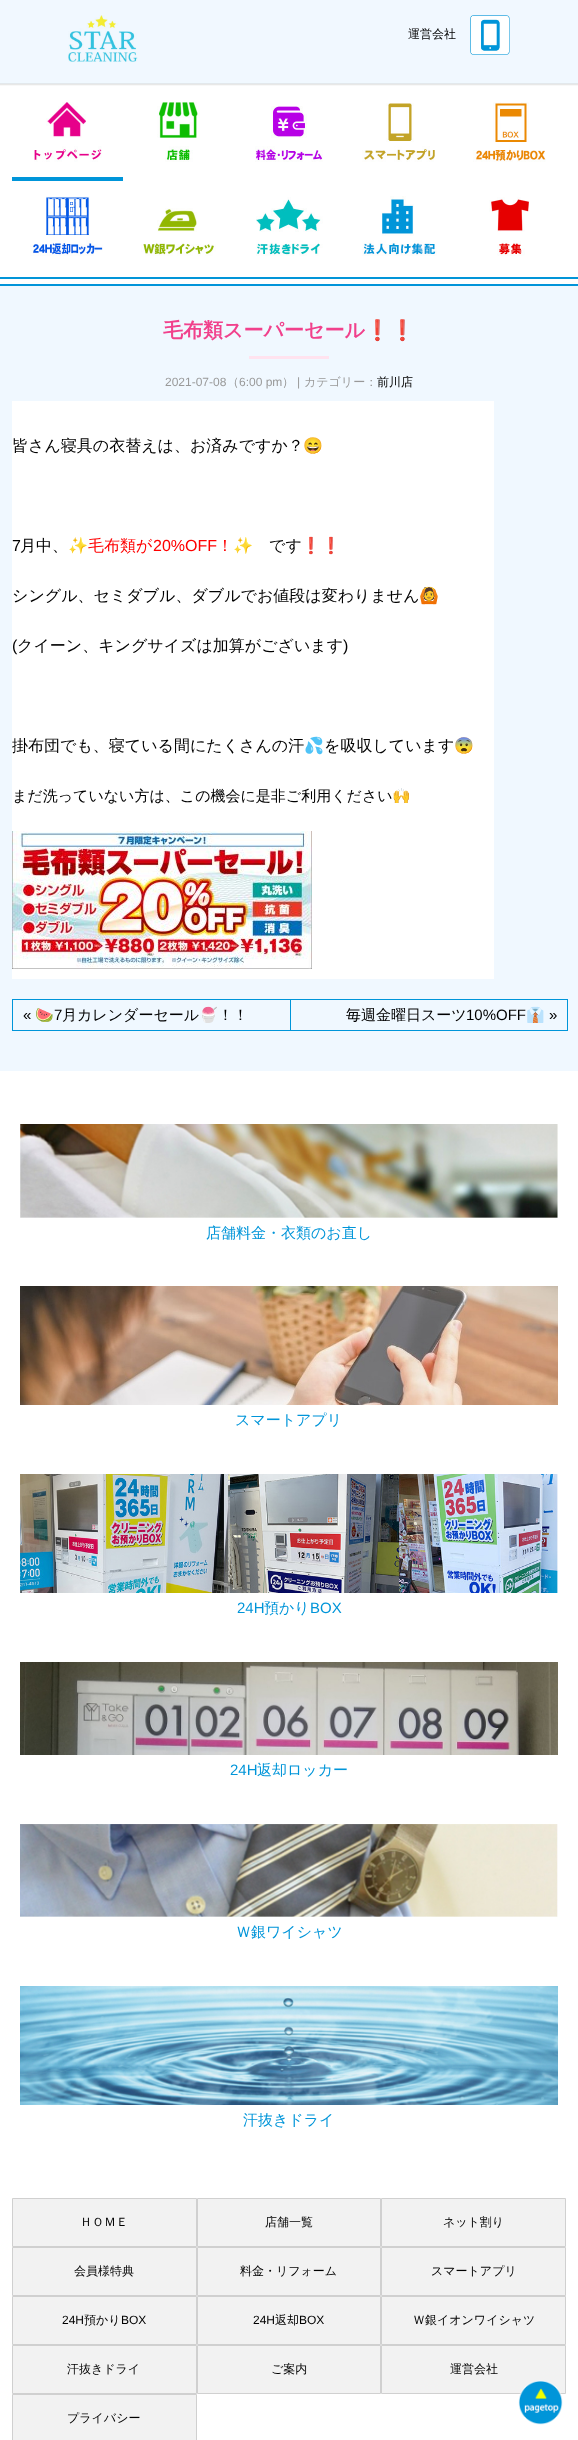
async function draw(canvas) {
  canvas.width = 578
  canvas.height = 2440
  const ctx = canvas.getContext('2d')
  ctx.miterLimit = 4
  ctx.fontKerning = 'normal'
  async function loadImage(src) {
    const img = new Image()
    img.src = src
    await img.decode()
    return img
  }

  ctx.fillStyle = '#fff'
  ctx.fillRect(0, 0, 578, 2440)
  ctx.drawImage(await loadImage('image0.png'), 0, 0, 578, 86)
  ctx.drawImage(await loadImage('image1.png'), 68, 15, 70, 47)
  ctx.font = '500 12px WenQuanYi Zen Hei'
  ctx.fillStyle = '#000'
  ctx.fillText('運営会社', 408, 38)
  ctx.drawImage(await loadImage('image2.png'), 470, 15, 40, 40)
  ctx.drawImage(await loadImage('image3.png'), 0, 277, 578, 9)
  ctx.fillStyle = '#0095d9'
  ctx.fillRect(12, 177, 111, 4)
  ctx.drawImage(await loadImage('image4.png'), 34, 102, 68, 60)
  ctx.drawImage(await loadImage('image5.png'), 157, 102, 43, 60)
  ctx.drawImage(await loadImage('image6.png'), 255, 106, 68, 56)
  ctx.drawImage(await loadImage('image7.png'), 362, 103, 73, 59)
  ctx.drawImage(await loadImage('image8.png'), 473, 102, 73, 60)
  ctx.drawImage(await loadImage('image9.png'), 30, 196, 73, 60)
  ctx.drawImage(await loadImage('image10.png'), 141, 208, 75, 48)
  ctx.drawImage(await loadImage('image11.png'), 256, 197, 67, 59)
  ctx.drawImage(await loadImage('image12.png'), 362, 196, 75, 60)
  ctx.drawImage(await loadImage('image13.png'), 489, 197, 40, 59)
  ctx.fillStyle = '#f0f8ff'
  ctx.fillRect(0, 286, 578, 785)
  ctx.font = 'bold 20px WenQuanYi Zen Hei'
  ctx.fillStyle = '#f1418c'
  ctx.fillText('毛布類スーパーセール', 163, 337)
  ctx.font = 'bold 20px Noto Color Emoji'
  ctx.fillText('❗❗', 365, 337)
  ctx.fillStyle = '#ffe3ef'
  ctx.fillRect(249, 356, 80, 3)
  ctx.font = '12px Liberation Sans'
  ctx.fillStyle = '#999'
  ctx.fillText('2021-07-08', 165, 386)
  ctx.font = '500 12px WenQuanYi Zen Hei'
  ctx.fillText('（', 227, 386)
  ctx.font = '12px Liberation Sans'
  ctx.fillText('6:00 pm', 239, 386)
  ctx.font = '500 12px WenQuanYi Zen Hei'
  ctx.fillText('）', 282, 386)
  ctx.font = '12px Liberation Sans'
  ctx.fillText('|', 297, 386)
  ctx.font = '500 12px WenQuanYi Zen Hei'
  ctx.fillText('カテゴリー：', 304, 386)
  ctx.fillStyle = '#000'
  ctx.fillText('前川店', 377, 386)
  ctx.fillStyle = '#fff'
  ctx.fillRect(12, 401, 482, 578)
  ctx.font = '500 16px WenQuanYi Zen Hei'
  ctx.fillStyle = '#000'
  ctx.fillText('皆さん寝具の衣替えは、お済みですか？', 12, 451)
  ctx.font = '16px Noto Color Emoji'
  ctx.fillText('😄', 303, 451)
  ctx.font = '16px Liberation Sans'
  ctx.fillText('7', 12, 551)
  ctx.font = '500 16px WenQuanYi Zen Hei'
  ctx.fillText('月中、', 20, 551)
  ctx.font = '16px Noto Color Emoji'
  ctx.fillText('✨', 68, 551)
  ctx.font = '500 16px WenQuanYi Zen Hei'
  ctx.fillStyle = '#f00'
  ctx.fillText('毛布類が', 88, 551)
  ctx.font = '16px Liberation Sans'
  ctx.fillText('20%OFF', 153, 551)
  ctx.font = '500 16px WenQuanYi Zen Hei'
  ctx.fillText('！', 217, 551)
  ctx.font = '16px Noto Color Emoji'
  ctx.fillText('✨', 233, 551)
  ctx.font = '500 16px WenQuanYi Zen Hei'
  ctx.fillStyle = '#000'
  ctx.fillText('です', 269, 551)
  ctx.font = '16px Noto Color Emoji'
  ctx.fillText('❗❗', 301, 551)
  ctx.font = '500 16px WenQuanYi Zen Hei'
  ctx.fillText('シングル、セミダブル、ダブルでお値段は変わりません', 12, 601)
  ctx.font = '16px Noto Color Emoji'
  ctx.fillText('🙆', 419, 601)
  ctx.font = '16px Liberation Sans'
  ctx.fillText('(', 12, 651)
  ctx.font = '500 16px WenQuanYi Zen Hei'
  ctx.fillText('クイーン、キングサイズは加算がございます', 17, 651)
  ctx.font = '16px Liberation Sans'
  ctx.fillText(')', 343, 651)
  ctx.font = '500 16px WenQuanYi Zen Hei'
  ctx.fillText('掛布団でも、寝ている間にたくさんの汗', 12, 751)
  ctx.font = '16px Noto Color Emoji'
  ctx.fillText('💦', 304, 751)
  ctx.font = '500 16px WenQuanYi Zen Hei'
  ctx.fillText('を吸収しています', 324, 751)
  ctx.font = '16px Noto Color Emoji'
  ctx.fillText('😨', 454, 751)
  ctx.font = '500 15px WenQuanYi Zen Hei'
  ctx.fillText('まだ洗っていない方は、この機会に是非ご利用ください', 12, 801)
  ctx.font = '15px Noto Color Emoji'
  ctx.fillText('🙌', 392, 801)
  ctx.drawImage(await loadImage('image14.png'), 12, 831, 300, 138)
  ctx.strokeStyle = '#0095d9'
  ctx.strokeRect(12.5, 999.5, 555, 31)
  ctx.font = '15px Liberation Sans'
  ctx.fillText('«', 23, 1020)
  ctx.font = '15px Noto Color Emoji'
  ctx.fillText('🍉', 35, 1020)
  ctx.font = '15px Liberation Sans'
  ctx.fillText('7', 54, 1020)
  ctx.font = '500 15px WenQuanYi Zen Hei'
  ctx.fillText('月カレンダーセール', 62, 1020)
  ctx.font = '15px Noto Color Emoji'
  ctx.fillText('🍧', 199, 1020)
  ctx.font = '500 15px WenQuanYi Zen Hei'
  ctx.fillText('！！', 218, 1020)
  ctx.fillStyle = '#0095d9'
  ctx.fillRect(290, 1000, 1, 30)
  ctx.fillStyle = '#000'
  ctx.fillText('毎週金曜日スーツ', 346, 1020)
  ctx.font = '15px Liberation Sans'
  ctx.fillText('10%OFF', 466, 1020)
  ctx.font = '15px Noto Color Emoji'
  ctx.fillText('👔', 526, 1020)
  ctx.font = '15px Liberation Sans'
  ctx.fillText('»', 549, 1020)
  ctx.drawImage(await loadImage('image15.png'), 20, 1124, 538, 94)
  ctx.font = '500 15px WenQuanYi Zen Hei'
  ctx.fillStyle = '#0095d9'
  ctx.fillText('店舗料金・衣類のお直し', 206, 1238)
  ctx.drawImage(await loadImage('image16.png'), 20, 1286, 538, 119)
  ctx.fillText('スマートアプリ', 235, 1425)
  ctx.drawImage(await loadImage('image17.png'), 20, 1474, 538, 119)
  ctx.font = '15px Liberation Sans'
  ctx.fillText('24H', 237, 1613)
  ctx.font = '500 15px WenQuanYi Zen Hei'
  ctx.fillText('預かり', 264, 1613)
  ctx.font = '15px Liberation Sans'
  ctx.fillText('BOX', 310, 1613)
  ctx.drawImage(await loadImage('image18.png'), 20, 1662, 538, 93)
  ctx.fillText('24H', 230, 1775)
  ctx.font = '500 15px WenQuanYi Zen Hei'
  ctx.fillText('返却ロッカー', 257, 1775)
  ctx.drawImage(await loadImage('image19.png'), 20, 1824, 538, 93)
  ctx.fillText('Ｗ銀ワイシャツ', 236, 1937)
  ctx.drawImage(await loadImage('image20.png'), 20, 1986, 538, 119)
  ctx.fillText('汗抜きドライ', 243, 2125)
  ctx.fillStyle = '#f2f2f2'
  ctx.beginPath()
  ctx.rect(12.5, 2198.5, 184, 48)
  ctx.fill()
  ctx.strokeStyle = '#d0d0d0'
  ctx.stroke()
  ctx.font = '500 12px WenQuanYi Zen Hei'
  ctx.fillStyle = '#000'
  ctx.fillText('ＨＯＭＥ', 80, 2226)
  ctx.fillStyle = '#f2f2f2'
  ctx.beginPath()
  ctx.rect(197.5, 2198.5, 183, 48)
  ctx.fill()
  ctx.stroke()
  ctx.fillStyle = '#000'
  ctx.fillText('店舗一覧', 265, 2226)
  ctx.fillStyle = '#f2f2f2'
  ctx.beginPath()
  ctx.rect(381.5, 2198.5, 184, 48)
  ctx.fill()
  ctx.stroke()
  ctx.fillStyle = '#000'
  ctx.fillText('ネット割り', 443, 2226)
  ctx.fillStyle = '#f2f2f2'
  ctx.beginPath()
  ctx.rect(12.5, 2247.5, 184, 48)
  ctx.fill()
  ctx.stroke()
  ctx.fillStyle = '#000'
  ctx.fillText('会員様特典', 74, 2275)
  ctx.fillStyle = '#f2f2f2'
  ctx.beginPath()
  ctx.rect(197.5, 2247.5, 183, 48)
  ctx.fill()
  ctx.stroke()
  ctx.fillStyle = '#000'
  ctx.fillText('料金・リフォーム', 240, 2275)
  ctx.fillStyle = '#f2f2f2'
  ctx.beginPath()
  ctx.rect(381.5, 2247.5, 184, 48)
  ctx.fill()
  ctx.stroke()
  ctx.fillStyle = '#000'
  ctx.fillText('スマートアプリ', 431, 2275)
  ctx.fillStyle = '#f2f2f2'
  ctx.beginPath()
  ctx.rect(12.5, 2296.5, 184, 48)
  ctx.fill()
  ctx.stroke()
  ctx.font = '12px Liberation Sans'
  ctx.fillStyle = '#000'
  ctx.fillText('24H', 62, 2324)
  ctx.font = '500 12px WenQuanYi Zen Hei'
  ctx.fillText('預かり', 84, 2324)
  ctx.font = '12px Liberation Sans'
  ctx.fillText('BOX', 121, 2324)
  ctx.fillStyle = '#f2f2f2'
  ctx.beginPath()
  ctx.rect(197.5, 2296.5, 183, 48)
  ctx.fill()
  ctx.stroke()
  ctx.fillStyle = '#000'
  ctx.fillText('24H', 253, 2324)
  ctx.font = '500 12px WenQuanYi Zen Hei'
  ctx.fillText('返却', 275, 2324)
  ctx.font = '12px Liberation Sans'
  ctx.fillText('BOX', 299, 2324)
  ctx.fillStyle = '#f2f2f2'
  ctx.beginPath()
  ctx.rect(381.5, 2296.5, 184, 48)
  ctx.fill()
  ctx.stroke()
  ctx.font = '500 12px WenQuanYi Zen Hei'
  ctx.fillStyle = '#000'
  ctx.fillText('Ｗ銀イオンワイシャツ', 413, 2324)
  ctx.fillStyle = '#f2f2f2'
  ctx.beginPath()
  ctx.rect(12.5, 2345.5, 184, 48)
  ctx.fill()
  ctx.stroke()
  ctx.fillStyle = '#000'
  ctx.fillText('汗抜きドライ', 67, 2373)
  ctx.fillStyle = '#f2f2f2'
  ctx.beginPath()
  ctx.rect(197.5, 2345.5, 183, 48)
  ctx.fill()
  ctx.stroke()
  ctx.fillStyle = '#000'
  ctx.fillText('ご案内', 271, 2373)
  ctx.fillStyle = '#f2f2f2'
  ctx.beginPath()
  ctx.rect(381.5, 2345.5, 184, 48)
  ctx.fill()
  ctx.stroke()
  ctx.fillStyle = '#000'
  ctx.fillText('運営会社', 450, 2373)
  ctx.fillStyle = '#f2f2f2'
  ctx.beginPath()
  ctx.rect(12.5, 2394.5, 184, 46)
  ctx.fill()
  ctx.stroke()
  ctx.fillStyle = '#000'
  ctx.fillText('プライバシー', 67, 2422)
  ctx.drawImage(await loadImage('image21.png'), 518, 2380, 45, 45)
}

draw(document.querySelector('canvas'))
